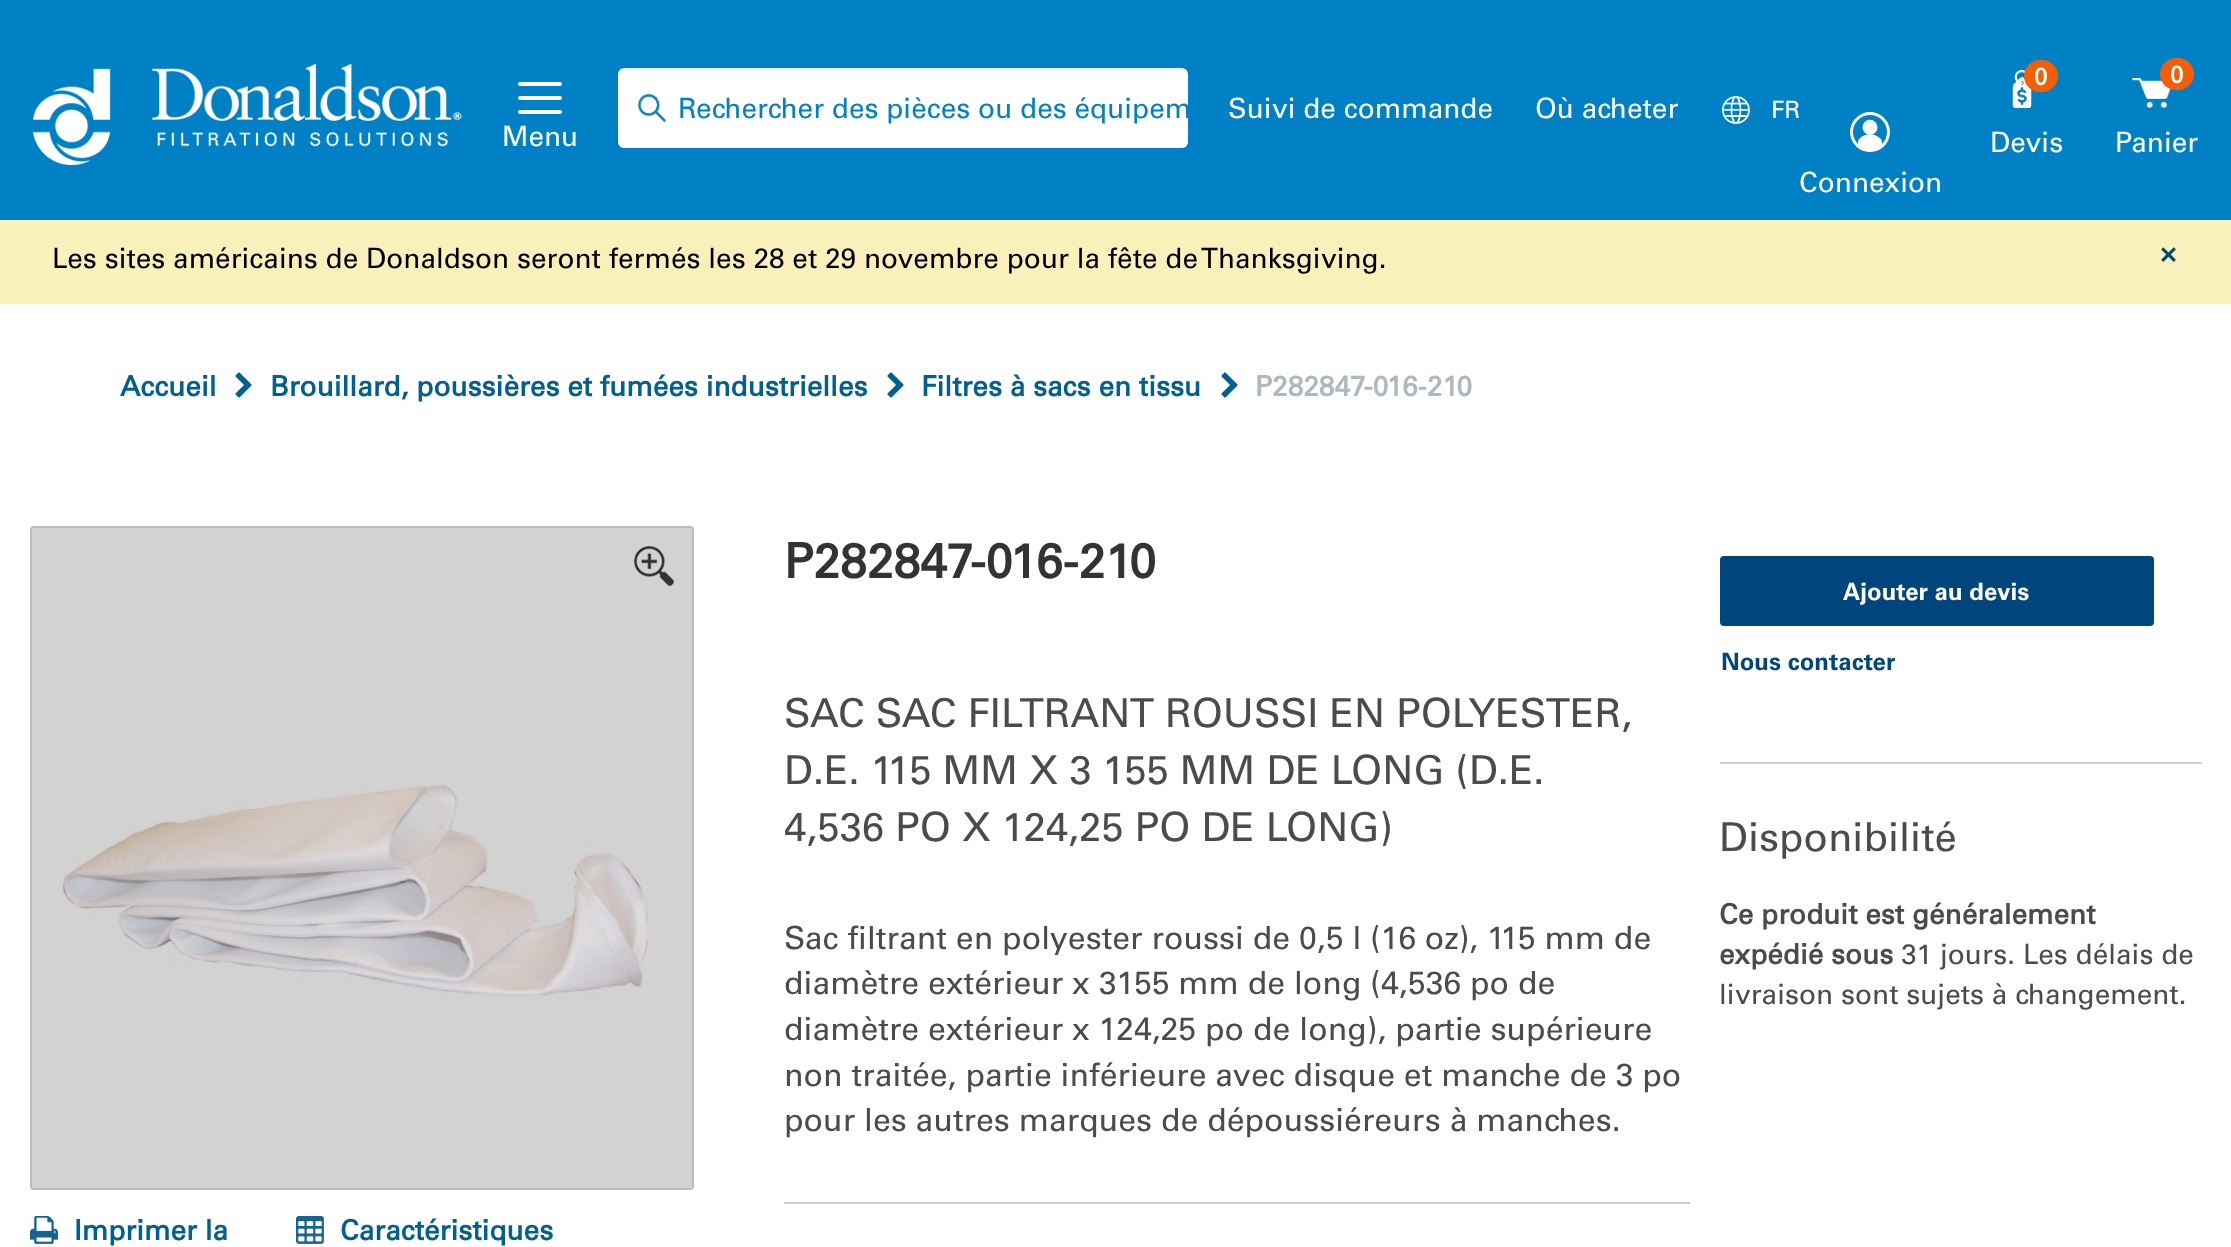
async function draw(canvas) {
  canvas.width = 2231
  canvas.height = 1247
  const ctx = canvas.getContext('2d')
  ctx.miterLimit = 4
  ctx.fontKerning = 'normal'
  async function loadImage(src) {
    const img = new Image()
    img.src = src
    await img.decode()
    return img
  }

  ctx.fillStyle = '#fff'
  ctx.fillRect(0, 0, 2231, 1247)
  ctx.fillStyle = '#0081c6'
  ctx.fillRect(0, 0, 2231, 220)
  ctx.drawImage(await loadImage('image0.png'), 33, 64, 429, 101)
  ctx.fillStyle = '#fff'
  ctx.beginPath()
  ctx.roundRect(518, 82, 44, 4, 2)
  ctx.fill()
  ctx.beginPath()
  ctx.roundRect(518, 96, 44, 4, 2)
  ctx.fill()
  ctx.beginPath()
  ctx.roundRect(518, 110, 44, 4, 2)
  ctx.fill()
  ctx.font = '28px Univers'
  ctx.fillText('Menu', 502, 146)
  ctx.beginPath()
  ctx.roundRect(618, 68, 570, 80, 6)
  ctx.fill()
  ctx.drawImage(await loadImage('image1.png'), 638, 94, 28, 28)
  ctx.fillStyle = '#00000012'
  ctx.beginPath()
  ctx.moveTo(624, 70)
  ctx.lineTo(1182, 70)
  ctx.bezierCurveTo(1185, 70, 1188, 73, 1188, 76)
  ctx.lineTo(1188, 74)
  ctx.bezierCurveTo(1188, 71, 1185, 68, 1182, 68)
  ctx.lineTo(624, 68)
  ctx.bezierCurveTo(621, 68, 618, 71, 618, 74)
  ctx.lineTo(618, 76)
  ctx.bezierCurveTo(618, 73, 621, 70, 624, 70)
  ctx.closePath()
  ctx.fill()
  ctx.save()
  ctx.beginPath()
  ctx.rect(678, 88, 510, 38)
  ctx.clip()
  ctx.fillStyle = '#0081c6'
  ctx.fillText('Rechercher des pièces ou des équipem', 678, 118)
  ctx.restore()
  ctx.fillStyle = '#fff'
  ctx.fillText('Suivi de commande', 1228, 118)
  ctx.fillText('Où acheter', 1535, 118)
  ctx.drawImage(await loadImage('image2.png'), 1722, 96, 28, 28)
  ctx.font = '24px Univers'
  ctx.fillText('FR', 1771, 118)
  ctx.drawImage(await loadImage('image3.png'), 2012, 70, 20, 38)
  ctx.fillStyle = '#f45e06'
  ctx.beginPath()
  ctx.roundRect(2024, 60, 34, 32, 16)
  ctx.fill()
  ctx.font = 'bold 24px Univers'
  ctx.fillStyle = '#fff'
  ctx.fillText('0', 2034, 85)
  ctx.font = '28px Univers'
  ctx.fillText('Devis', 1990, 152)
  ctx.drawImage(await loadImage('image4.png'), 2132, 78, 39, 30)
  ctx.fillStyle = '#f45e06'
  ctx.beginPath()
  ctx.roundRect(2160, 58, 34, 32, 16)
  ctx.fill()
  ctx.font = 'bold 24px Univers'
  ctx.fillStyle = '#fff'
  ctx.fillText('0', 2170, 83)
  ctx.font = '28px Univers'
  ctx.fillText('Panier', 2115, 152)
  ctx.drawImage(await loadImage('image5.png'), 1850, 112, 40, 40)
  ctx.fillText('Connexion', 1799, 192)
  ctx.fillStyle = '#faf0b9'
  ctx.fillRect(0, 220, 2231, 84)
  ctx.fillStyle = '#000'
  ctx.fillText('Les sites américains de Donaldson seront fermés les 28 et 29 novembre pour la fête de Thanksgiving.', 52, 268)
  ctx.font = 'bold 28px Univers'
  ctx.fillStyle = '#00476c'
  ctx.fillText('×', 2160, 262)
  ctx.fillStyle = '#006090'
  ctx.fillText('Accueil', 120, 396)
  ctx.drawImage(await loadImage('image6.png'), 235, 372, 17, 26)
  ctx.fillText('Brouillard, poussières et fumées industrielles', 270, 396)
  ctx.drawImage(await loadImage('image6.png'), 887, 372, 17, 26)
  ctx.fillText('Filtres à sacs en tissu', 921, 396)
  ctx.drawImage(await loadImage('image6.png'), 1221, 372, 17, 26)
  ctx.fillStyle = '#adb8bf'
  ctx.fillText('P282847-016-210', 1255, 396)
  ctx.font = 'bold 48px Univers'
  ctx.fillStyle = '#333'
  ctx.fillText('P282847-016-210', 784, 578)
  ctx.font = '40px Univers'
  ctx.fillStyle = '#4b4b4b'
  ctx.fillText('SAC SAC FILTRANT ROUSSI EN POLYESTER,', 784, 727)
  ctx.fillText('D.E. 115 MM X 3 155 MM DE LONG (D.E.', 784, 784)
  ctx.fillText('4,536 PO X 124,25 PO DE LONG)', 784, 841)
  ctx.font = '32px Univers'
  ctx.fillText('Sac filtrant en polyester roussi de 0,5 l (16 oz), 115 mm de', 784, 949)
  ctx.fillText('diamètre extérieur x 3155 mm de long (4,536 po de', 784, 994)
  ctx.fillText('diamètre extérieur x 124,25 po de long), partie supérieure', 784, 1040)
  ctx.fillText('non traitée, partie inférieure avec disque et manche de 3 po', 784, 1086)
  ctx.fillText('pour les autres marques de dépoussiéreurs à manches.', 784, 1131)
  ctx.fillStyle = '#ccc'
  ctx.fillRect(784, 1202, 906, 2)
  ctx.fillStyle = '#00457c'
  ctx.beginPath()
  ctx.roundRect(1721, 557, 432, 68, 3)
  ctx.fill()
  ctx.strokeStyle = '#00457c'
  ctx.lineWidth = 2
  ctx.stroke()
  ctx.font = 'bold 24px "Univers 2"'
  ctx.fillStyle = '#fff'
  ctx.fillText('Ajouter au devis', 1843, 600)
  ctx.fillStyle = '#00477c'
  ctx.fillText('Nous contacter', 1721, 670)
  ctx.fillStyle = '#d2d2d2'
  ctx.fillRect(1720, 762, 482, 2)
  ctx.font = '40px Univers'
  ctx.fillStyle = '#4b4b4b'
  ctx.fillText('Disponibilité', 1719, 851)
  ctx.font = 'bold 28px Univers'
  ctx.fillText('Ce produit est généralement', 1719, 924)
  ctx.fillText('expédié sous', 1719, 964)
  ctx.font = '28px Univers'
  ctx.fillText('31 jours. Les délais de', 1901, 964)
  ctx.fillText('livraison sont sujets à changement.', 1719, 1004)
  ctx.beginPath()
  ctx.roundRect(31, 527, 662, 662, 3)
  ctx.strokeStyle = '#bbb'
  ctx.stroke()
  ctx.drawImage(await loadImage('image7.png'), 32, 528, 660, 660)
  ctx.drawImage(await loadImage('image8.png'), 634, 546, 40, 40)
  ctx.drawImage(await loadImage('image9.png'), 30, 1216, 28, 28)
  ctx.font = 'bold 28px Univers'
  ctx.fillStyle = '#006090'
  ctx.fillText('Imprimer la', 74, 1240)
  ctx.drawImage(await loadImage('image10.png'), 296, 1216, 28, 28)
  ctx.fillText('Caractéristiques', 340, 1240)
}

draw(document.querySelector('canvas'))
